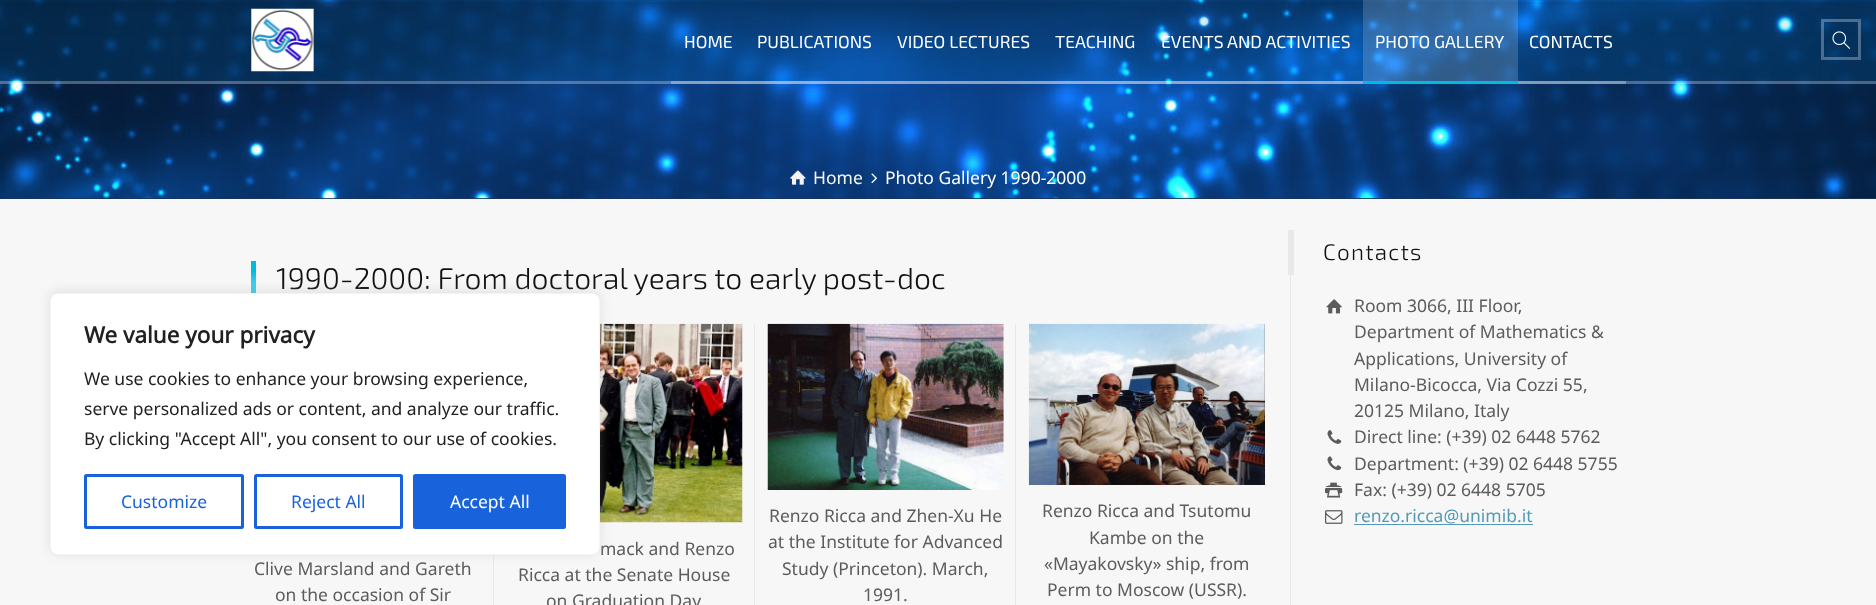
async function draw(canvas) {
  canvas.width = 1876
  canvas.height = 605
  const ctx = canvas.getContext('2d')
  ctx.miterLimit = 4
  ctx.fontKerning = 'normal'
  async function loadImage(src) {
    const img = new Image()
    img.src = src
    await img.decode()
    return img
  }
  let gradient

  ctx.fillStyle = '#1c3356'
  ctx.fillRect(0, 0, 1876, 605)
  ctx.drawImage(await loadImage('image2.png'), 0, 0, 1876, 199)
  ctx.fillStyle = '#00a6ff1a'
  ctx.fillRect(0, 0, 1876, 81)
  gradient = ctx.createLinearGradient(938, 0, 938, 81)
  gradient.addColorStop(0.02, '#00000000')
  gradient.addColorStop(0.02, '#0000001a')
  gradient.addColorStop(0.23, '#00000008')
  gradient.addColorStop(1, '#00000000')
  ctx.fillStyle = gradient
  ctx.fillRect(0, 2, 1876, 34)
  ctx.drawImage(await loadImage('image0.png'), 251, 8, 63, 64)
  ctx.font = '17.5px "Exo 2"'
  ctx.fillStyle = '#fff'
  ctx.fillText('HOME', 684, 48)
  ctx.fillStyle = '#ffffff4d'
  ctx.fillRect(0, 81, 1876, 3)
  ctx.fillRect(671, 81, 74, 3)
  ctx.fillStyle = '#fff'
  ctx.fillText('PUBLICATIONS', 757, 48)
  ctx.fillStyle = '#ffffff4d'
  ctx.fillRect(745, 81, 140, 3)
  ctx.fillStyle = '#fff'
  ctx.fillText('VIDEO LECTURES', 897, 48)
  ctx.fillStyle = '#ffffff4d'
  ctx.fillRect(885, 81, 158, 3)
  ctx.fillStyle = '#fff'
  ctx.fillText('TEACHING', 1055, 48)
  ctx.fillStyle = '#ffffff4d'
  ctx.fillRect(1043, 81, 105, 3)
  ctx.fillStyle = '#fff'
  ctx.fillText('EVENTS AND ACTIVITIES', 1161, 48)
  ctx.fillStyle = '#ffffff4d'
  ctx.fillRect(1148, 81, 215, 3)
  ctx.fillStyle = '#ffffff2b'
  ctx.fillRect(1363, 0, 155, 81)
  ctx.fillStyle = '#fff'
  ctx.fillText('PHOTO GALLERY', 1375, 48)
  ctx.fillStyle = '#00badf'
  ctx.fillRect(1363, 81, 155, 3)
  ctx.fillStyle = '#fff'
  ctx.fillText('CONTACTS', 1529, 48)
  ctx.fillStyle = '#ffffff4d'
  ctx.fillRect(1518, 81, 108, 3)
  ctx.strokeStyle = '#ffffff4a'
  ctx.lineWidth = 3
  ctx.strokeRect(1822.5, 20.5, 37, 38)
  ctx.drawImage(await loadImage('image1.png'), 1832, 31, 18, 18)
  ctx.drawImage(await loadImage('image3.png'), 790, 170, 16, 15)
  ctx.font = '17.5px Noto Sans'
  ctx.fillStyle = '#f4f4f4'
  ctx.fillText('Home', 813, 184)
  ctx.drawImage(await loadImage('image4.png'), 871, 173, 6, 11)
  ctx.fillStyle = '#fff'
  ctx.fillText('Photo Gallery 1990-2000', 885, 184)
  ctx.fillStyle = '#f7f7f7'
  ctx.fillRect(0, 199, 1876, 406)
  ctx.fillStyle = '#e8e8e8'
  ctx.fillRect(1290, 275, 1, 330)
  gradient = ctx.createLinearGradient(254, 294, 254, 261)
  gradient.addColorStop(0.35, '#40cbe7')
  gradient.addColorStop(0.7, '#00badf')
  ctx.fillStyle = gradient
  ctx.fillRect(251, 261, 5, 33)
  ctx.font = '300 30px "Exo 2"'
  ctx.fillStyle = '#111'
  ctx.fillText('1990-2000: From doctoral years to early post-doc', 276, 289)
  ctx.font = '17.5px Noto Sans'
  ctx.fillStyle = '#5c5c5c'
  ctx.fillText('Clive Marsland and Gareth', 254, 575)
  ctx.fillText('on the occasion of Sir', 275, 601)
  ctx.drawImage(await loadImage('image5.png'), 600, 323, 143, 200)
  ctx.fillStyle = '#e8e8e8'
  ctx.fillRect(493, 555, 1, 50)
  ctx.fillStyle = '#5c5c5c'
  ctx.fillText('mack and Renzo', 600, 555)
  ctx.fillText('Ricca at the Senate House', 518, 581)
  ctx.fillText('on Graduation Day', 546, 607)
  ctx.fillStyle = '#e8e8e8'
  ctx.fillRect(754, 324, 1, 281)
  ctx.drawImage(await loadImage('image6.png'), 767, 323, 237, 167)
  ctx.fillStyle = '#5c5c5c'
  ctx.fillText('Renzo Ricca and Zhen-Xu He', 769, 522)
  ctx.fillText('at the Institute for Advanced', 768, 548)
  ctx.fillText('Study (Princeton). March,', 782, 575)
  ctx.fillText('1991.', 863, 601)
  ctx.fillStyle = '#e8e8e8'
  ctx.fillRect(1015, 324, 1, 281)
  ctx.drawImage(await loadImage('image7.png'), 1028, 323, 237, 162)
  ctx.fillStyle = '#5c5c5c'
  ctx.fillText('Renzo Ricca and Tsutomu', 1042, 517)
  ctx.fillText('Kambe on the', 1089, 544)
  ctx.fillText('«Mayakovsky» ship, from', 1044, 570)
  ctx.fillText('Perm to Moscow (USSR).', 1047, 596)
  ctx.fillStyle = '#e8e8e8'
  ctx.fillRect(1288, 230, 6, 45)
  ctx.letterSpacing = '1.25px'
  ctx.font = '300 22.5px "Exo 2"'
  ctx.fillStyle = '#111'
  ctx.fillText('Contacts', 1323, 260)
  ctx.drawImage(await loadImage('image8.png'), 1326, 299, 16, 15)
  ctx.letterSpacing = '0px'
  ctx.font = '17.5px Noto Sans'
  ctx.fillStyle = '#5c5c5c'
  ctx.fillText('Room 3066, III Floor,', 1354, 312)
  ctx.fillText('Department of Mathematics &', 1354, 338)
  ctx.fillText('Applications, University of', 1354, 365)
  ctx.fillText('Milano-Bicocca, Via Cozzi 55,', 1354, 391)
  ctx.fillText('20125 Milano, Italy', 1354, 417)
  ctx.drawImage(await loadImage('image9.png'), 1327, 430, 15, 14)
  ctx.fillText('Direct line: (+39) 02 6448 5762', 1354, 443)
  ctx.drawImage(await loadImage('image10.png'), 1327, 456, 15, 15)
  ctx.fillText('Department: (+39) 02 6448 5755', 1354, 470)
  ctx.drawImage(await loadImage('image11.png'), 1325, 482, 18, 16)
  ctx.fillText('Fax: (+39) 02 6448 5705', 1354, 496)
  ctx.drawImage(await loadImage('image12.png'), 1325, 510, 18, 14)
  ctx.fillStyle = '#549ab8'
  ctx.fillText('renzo.ricca@unimib.it', 1354, 522)
  ctx.fillRect(1354, 524, 179, 1)
  ctx.fillStyle = '#acabab4d'
  ctx.filter = 'blur(6px)'
  ctx.beginPath()
  ctx.roundRect(50, 291, 550, 263, 8)
  ctx.fill()
  ctx.filter = 'none'
  ctx.fillStyle = '#fff'
  ctx.beginPath()
  ctx.roundRect(50.5, 293.5, 549, 261, 7.5)
  ctx.fill()
  ctx.strokeStyle = '#f4f4f4'
  ctx.lineWidth = 1
  ctx.stroke()
  ctx.font = 'bold 22.5px Noto Sans'
  ctx.fillStyle = '#212121'
  ctx.fillText('We value your privacy', 84, 343)
  ctx.font = '17.5px Noto Sans'
  ctx.fillText('We use cookies to enhance your browsing experience,', 84, 385)
  ctx.fillText('serve personalized ads or content, and analyze our traffic.', 84, 415)
  ctx.fillText('By clicking "Accept All", you consent to our use of cookies.', 84, 445)
  ctx.beginPath()
  ctx.roundRect(85.5, 475.5, 157, 52, 1)
  ctx.strokeStyle = '#1863dc'
  ctx.lineWidth = 3
  ctx.stroke()
  ctx.fillStyle = '#1863dc'
  ctx.fillText('Customize', 121, 508)
  ctx.beginPath()
  ctx.roundRect(255.5, 475.5, 146, 52, 1)
  ctx.stroke()
  ctx.fillText('Reject All', 291, 508)
  ctx.beginPath()
  ctx.roundRect(414.5, 475.5, 150, 52, 1)
  ctx.fill()
  ctx.stroke()
  ctx.fillStyle = '#fff'
  ctx.fillText('Accept All', 450, 508)
}

draw(document.querySelector('canvas'))
